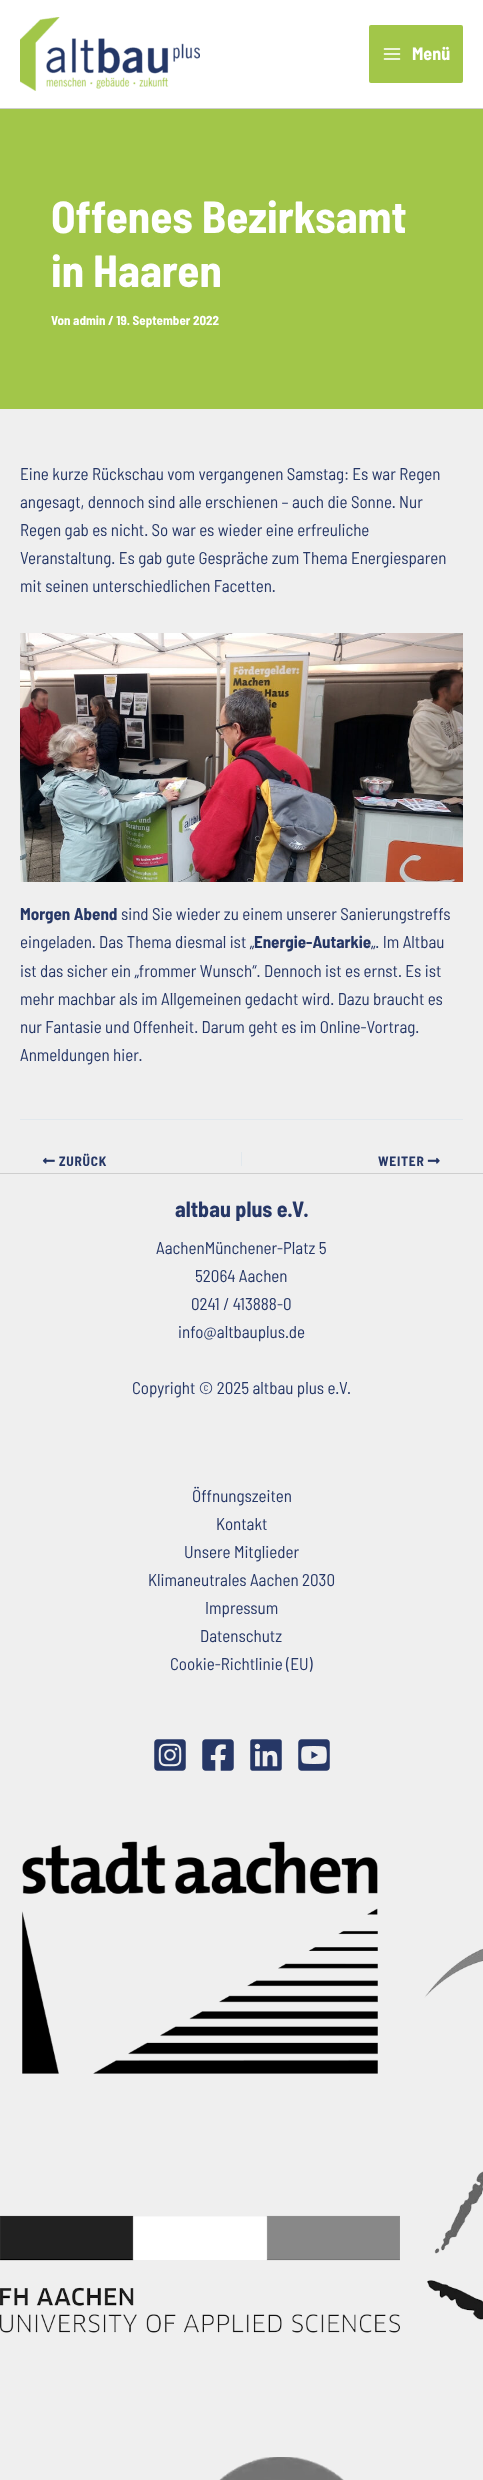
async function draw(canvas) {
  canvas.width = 483
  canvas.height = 2480
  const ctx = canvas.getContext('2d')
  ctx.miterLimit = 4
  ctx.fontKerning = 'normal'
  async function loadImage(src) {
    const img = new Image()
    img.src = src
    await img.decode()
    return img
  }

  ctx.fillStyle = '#efefef'
  ctx.fillRect(0, 0, 483, 2480)
  ctx.fillStyle = '#fff'
  ctx.fillRect(0, 0, 483, 108)
  ctx.fillStyle = '#cecece'
  ctx.fillRect(0, 108, 483, 1)
  ctx.drawImage(await loadImage('image0.png'), 20, 17, 180, 74)
  ctx.fillStyle = '#a2c649'
  ctx.beginPath()
  ctx.roundRect(369, 25, 94, 58, 2)
  ctx.fill()
  ctx.drawImage(await loadImage('image1.png'), 383, 48, 18, 12)
  ctx.font = 'bold 18px Barlow Semi Condensed'
  ctx.fillStyle = '#fff'
  ctx.fillText('Menü', 412, 60)
  ctx.fillStyle = '#a2c649'
  ctx.fillRect(0, 109, 483, 300)
  ctx.font = 'bold 45px Barlow Semi Condensed'
  ctx.fillStyle = '#fff'
  ctx.fillText('Offenes Bezirksamt', 51, 233)
  ctx.fillText('in Haaren', 51, 287)
  ctx.font = 'bold 13px Barlow Semi Condensed'
  ctx.fillText('Von admin / 19. September 2022', 51, 325)
  ctx.font = '17px Barlow Semi Condensed'
  ctx.fillStyle = '#263766'
  ctx.fillText('Eine kurze Rückschau vom vergangenen Samstag: Es war Regen', 20, 480)
  ctx.fillText('angesagt, dennoch sind alle erschienen – auch die Sonne. Nur', 20, 508)
  ctx.fillText('Regen gab es nicht. So war es wieder eine erfreuliche', 20, 536)
  ctx.fillText('Veranstaltung. Es gab gute Gespräche zum Thema Energiesparen', 20, 564)
  ctx.fillText('mit seinen unterschiedlichen Facetten.', 20, 592)
  ctx.drawImage(await loadImage('image2.png'), 20, 633, 443, 249)
  ctx.font = 'bold 17px Barlow Semi Condensed'
  ctx.fillText('Morgen Abend', 20, 920)
  ctx.font = '17px Barlow Semi Condensed'
  ctx.fillText('sind Sie wieder zu einem unserer Sanierungstreffs', 121, 920)
  ctx.fillText('eingeladen. Das Thema diesmal ist „', 20, 948)
  ctx.font = 'bold 17px Barlow Semi Condensed'
  ctx.fillText('Energie-Autarkie', 254, 948)
  ctx.font = '17px Barlow Semi Condensed'
  ctx.fillText('„. Im Altbau', 371, 948)
  ctx.fillText('ist das sicher ein „frommer Wunsch“. Dennoch ist es ernst. Es ist', 20, 977)
  ctx.fillText('mehr machbar als im Allgemeinen gedacht wird. Dazu braucht es', 20, 1005)
  ctx.fillText('nur Fantasie und Offenheit. Darum geht es im Online-Vortrag.', 20, 1033)
  ctx.fillText('Anmeldungen hier.', 20, 1061)
  ctx.fillStyle = '#e1e8ed'
  ctx.fillRect(20, 1119, 443, 1)
  ctx.drawImage(await loadImage('image3.png'), 42, 1157, 13, 7)
  ctx.letterSpacing = '0.75px'
  ctx.font = 'bold 13.5px Barlow Semi Condensed'
  ctx.fillStyle = '#263766'
  ctx.fillText('ZURÜCK', 59, 1166)
  ctx.fillStyle = '#e1e8ed'
  ctx.fillRect(241, 1152, 1, 14)
  ctx.fillStyle = '#263766'
  ctx.fillText('WEITER', 378, 1166)
  ctx.drawImage(await loadImage('image4.png'), 427, 1157, 13, 7)
  ctx.fillStyle = '#cecece'
  ctx.fillRect(0, 1173, 483, 1)
  ctx.letterSpacing = '0px'
  ctx.font = 'bold 22px Barlow Semi Condensed'
  ctx.fillStyle = '#263766'
  ctx.fillText('altbau plus e.V.', 175, 1217)
  ctx.font = '17px Barlow Semi Condensed'
  ctx.fillText('AachenMünchener-Platz 5', 156, 1254)
  ctx.fillText('52064 Aachen', 195, 1282)
  ctx.fillText('0241 / 413888-0', 191, 1310)
  ctx.fillText('info@altbauplus.de', 178, 1338)
  ctx.fillText('Copyright © 2025 altbau plus e.V.', 132, 1394)
  ctx.fillText('Öffnungszeiten', 192, 1502)
  ctx.fillText('Kontakt', 216, 1530)
  ctx.fillText('Unsere Mitglieder', 184, 1558)
  ctx.fillText('Klimaneutrales Aachen 2030', 148, 1586)
  ctx.fillText('Impressum', 205, 1614)
  ctx.fillText('Datenschutz', 200, 1642)
  ctx.fillText('Cookie-Richtlinie (EU)', 170, 1670)
  ctx.drawImage(await loadImage('image5.png'), 154, 1739, 32, 32)
  ctx.drawImage(await loadImage('image6.png'), 202, 1739, 32, 32)
  ctx.drawImage(await loadImage('image7.png'), 250, 1739, 32, 32)
  ctx.drawImage(await loadImage('image8.png'), 298, 1739, 32, 32)
  ctx.drawImage(await loadImage('image9.png'), 22, 1841, 356, 233)
  ctx.drawImage(await loadImage('image10.png'), 424, 1948, 59, 50)
  ctx.drawImage(await loadImage('image11.png'), 0, 2215, 400, 118)
  ctx.drawImage(await loadImage('image12.png'), 427, 2171, 56, 149)
  ctx.drawImage(await loadImage('image13.png'), 219, 2457, 125, 23)
}

draw(document.querySelector('canvas'))
